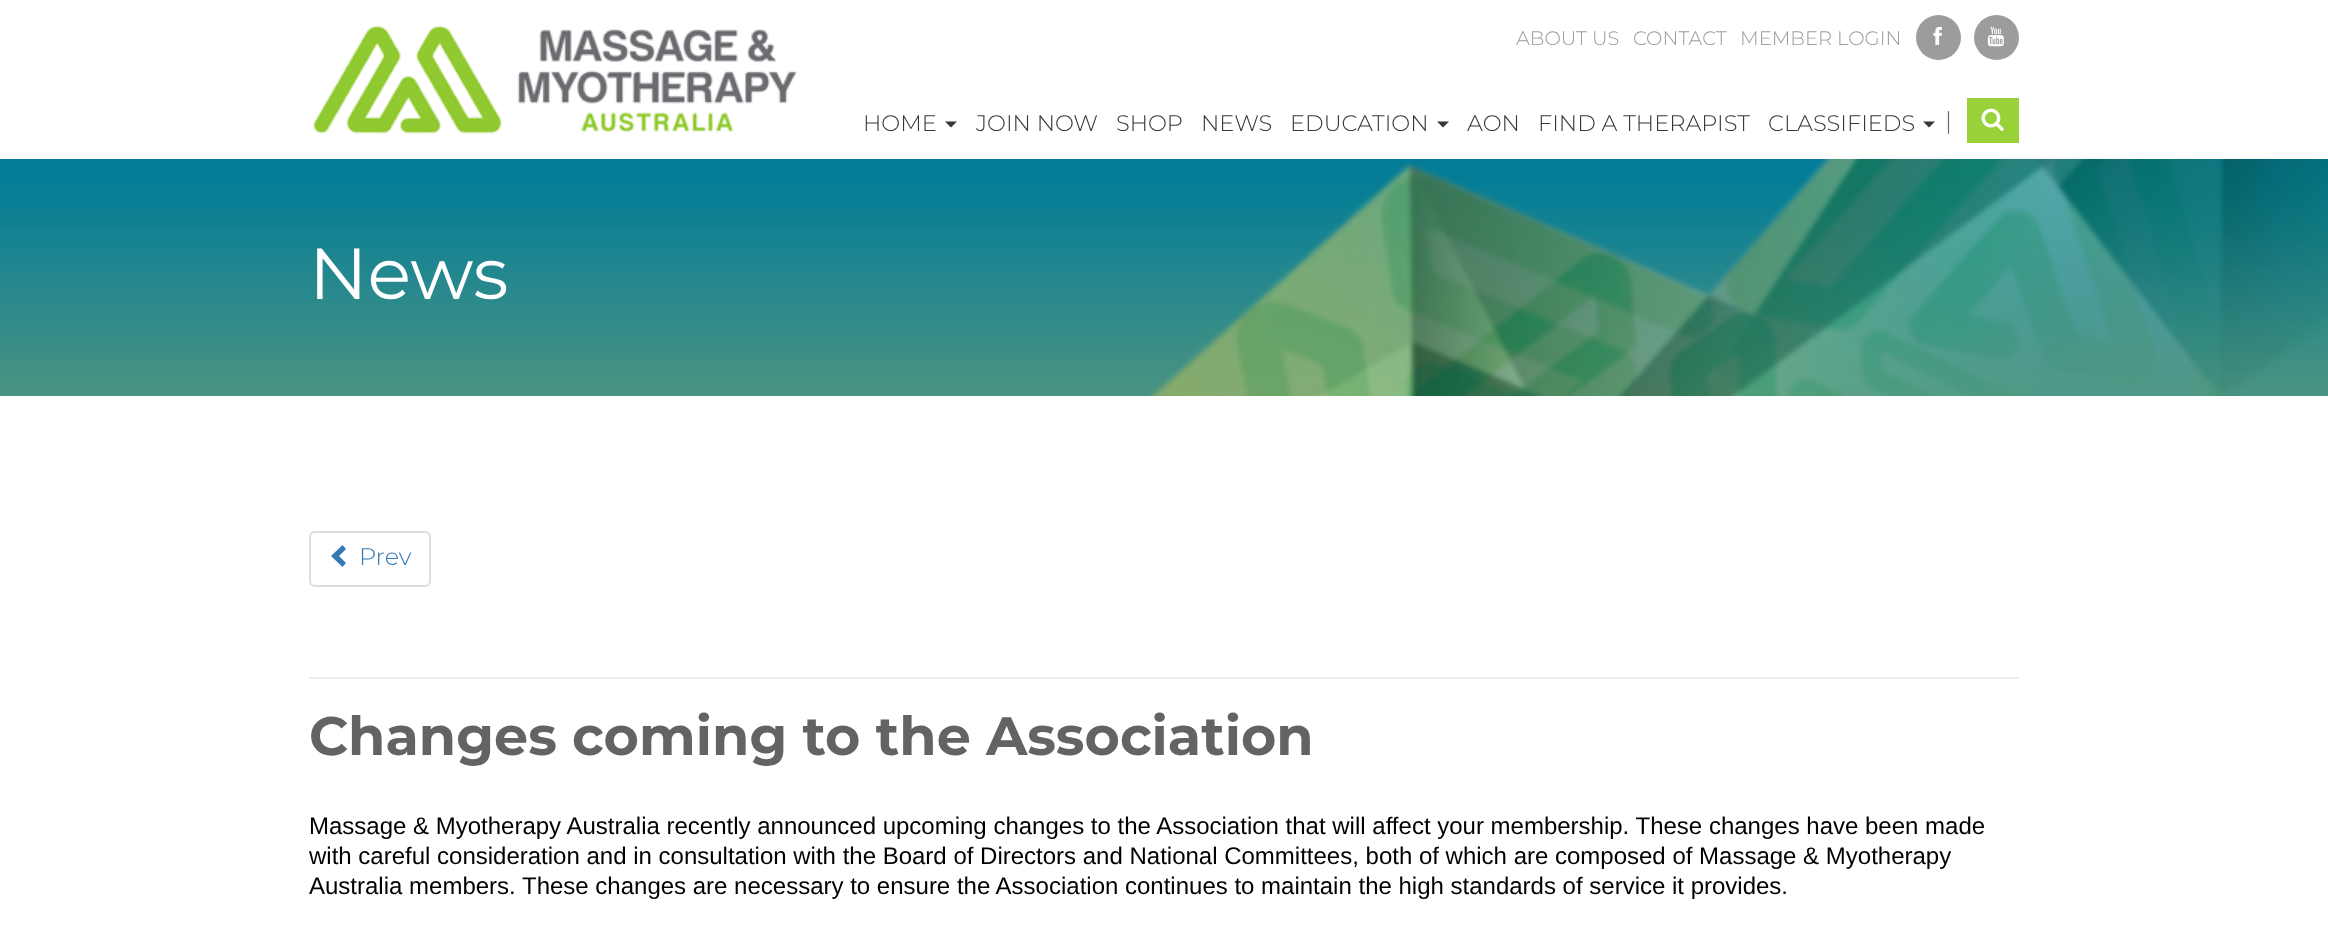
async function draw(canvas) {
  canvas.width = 2328
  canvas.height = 940
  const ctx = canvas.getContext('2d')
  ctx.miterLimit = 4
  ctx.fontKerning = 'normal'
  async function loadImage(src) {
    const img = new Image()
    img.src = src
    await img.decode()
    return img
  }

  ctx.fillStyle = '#fff'
  ctx.fillRect(0, 0, 2328, 940)
  ctx.font = '300 19.5px Montserrat'
  ctx.fillStyle = '#9c9c9c'
  ctx.fillText('ABOUT US', 1516, 45)
  ctx.fillText('CONTACT', 1633, 45)
  ctx.fillText('MEMBER LOGIN', 1740, 45)
  ctx.beginPath()
  ctx.arc(1938.5, 37.5, 22.5, 0, 2 * Math.PI)
  ctx.fill()
  ctx.drawImage(await loadImage('image0.png'), 1933, 26, 9, 19)
  ctx.beginPath()
  ctx.arc(1996.5, 37.5, 22.5, 0, 2 * Math.PI)
  ctx.fill()
  ctx.drawImage(await loadImage('image1.png'), 1987, 26, 17, 21)
  ctx.drawImage(await loadImage('image2.png'), 313, 25, 484, 109)
  ctx.font = '300 22.5px Montserrat'
  ctx.fillStyle = '#373737'
  ctx.fillText('HOME', 863, 131)
  ctx.beginPath()
  ctx.moveTo(945, 121.5)
  ctx.lineTo(957, 121.5)
  ctx.lineTo(951, 127.5)
  ctx.closePath()
  ctx.fill()
  ctx.fillText('JOIN NOW', 976, 131)
  ctx.fillText('SHOP', 1116, 131)
  ctx.fillText('NEWS', 1201, 131)
  ctx.fillText('EDUCATION', 1290, 131)
  ctx.beginPath()
  ctx.moveTo(1437, 121.5)
  ctx.lineTo(1449, 121.5)
  ctx.lineTo(1443, 127.5)
  ctx.closePath()
  ctx.fill()
  ctx.fillText('AON', 1467, 131)
  ctx.fillText('FIND A THERAPIST', 1538, 131)
  ctx.fillText('CLASSIFIEDS', 1768, 131)
  ctx.beginPath()
  ctx.moveTo(1923, 121.5)
  ctx.lineTo(1935, 121.5)
  ctx.lineTo(1929, 127.5)
  ctx.closePath()
  ctx.fill()
  ctx.font = '300 24px Montserrat'
  ctx.fillStyle = '#636363'
  ctx.fillText('|', 1945, 129)
  ctx.fillStyle = '#99d139'
  ctx.fillRect(1967, 98, 52, 45)
  ctx.drawImage(await loadImage('image3.png'), 1981, 108, 23, 23)
  ctx.drawImage(await loadImage('image4.png'), 0, 159, 2328, 237)
  ctx.font = '72px Montserrat'
  ctx.fillStyle = '#fff'
  ctx.fillText('News', 309, 299)
  ctx.beginPath()
  ctx.roundRect(310, 532, 120, 54, 5)
  ctx.strokeStyle = '#ddd'
  ctx.lineWidth = 2
  ctx.stroke()
  ctx.fillStyle = '#337ab7'
  ctx.beginPath()
  ctx.moveTo(346, 549)
  ctx.lineTo(339, 556)
  ctx.lineTo(346, 563)
  ctx.lineTo(342.5, 567)
  ctx.lineTo(331, 556)
  ctx.lineTo(342.5, 545)
  ctx.closePath()
  ctx.fill()
  ctx.font = '300 24px Montserrat'
  ctx.fillText('Prev', 359, 565)
  ctx.fillStyle = '#eee'
  ctx.fillRect(309, 677, 1710, 2)
  ctx.font = 'bold 54px Montserrat'
  ctx.fillStyle = '#636363'
  ctx.fillText('Changes coming to the Association', 309, 755)
  ctx.font = '24px Liberation Sans'
  ctx.fillStyle = '#000'
  ctx.fillText('Massage & Myotherapy Australia recently announced upcoming changes to the Association that will affect your membership. These changes have been made', 309, 834)
  ctx.fillText('with careful consideration and in consultation with the Board of Directors and National Committees, both of which are composed of Massage & Myotherapy', 309, 864)
  ctx.fillText('Australia members. These changes are necessary to ensure the Association continues to maintain the high standards of service it provides.', 309, 894)
}

draw(document.querySelector('canvas'))
